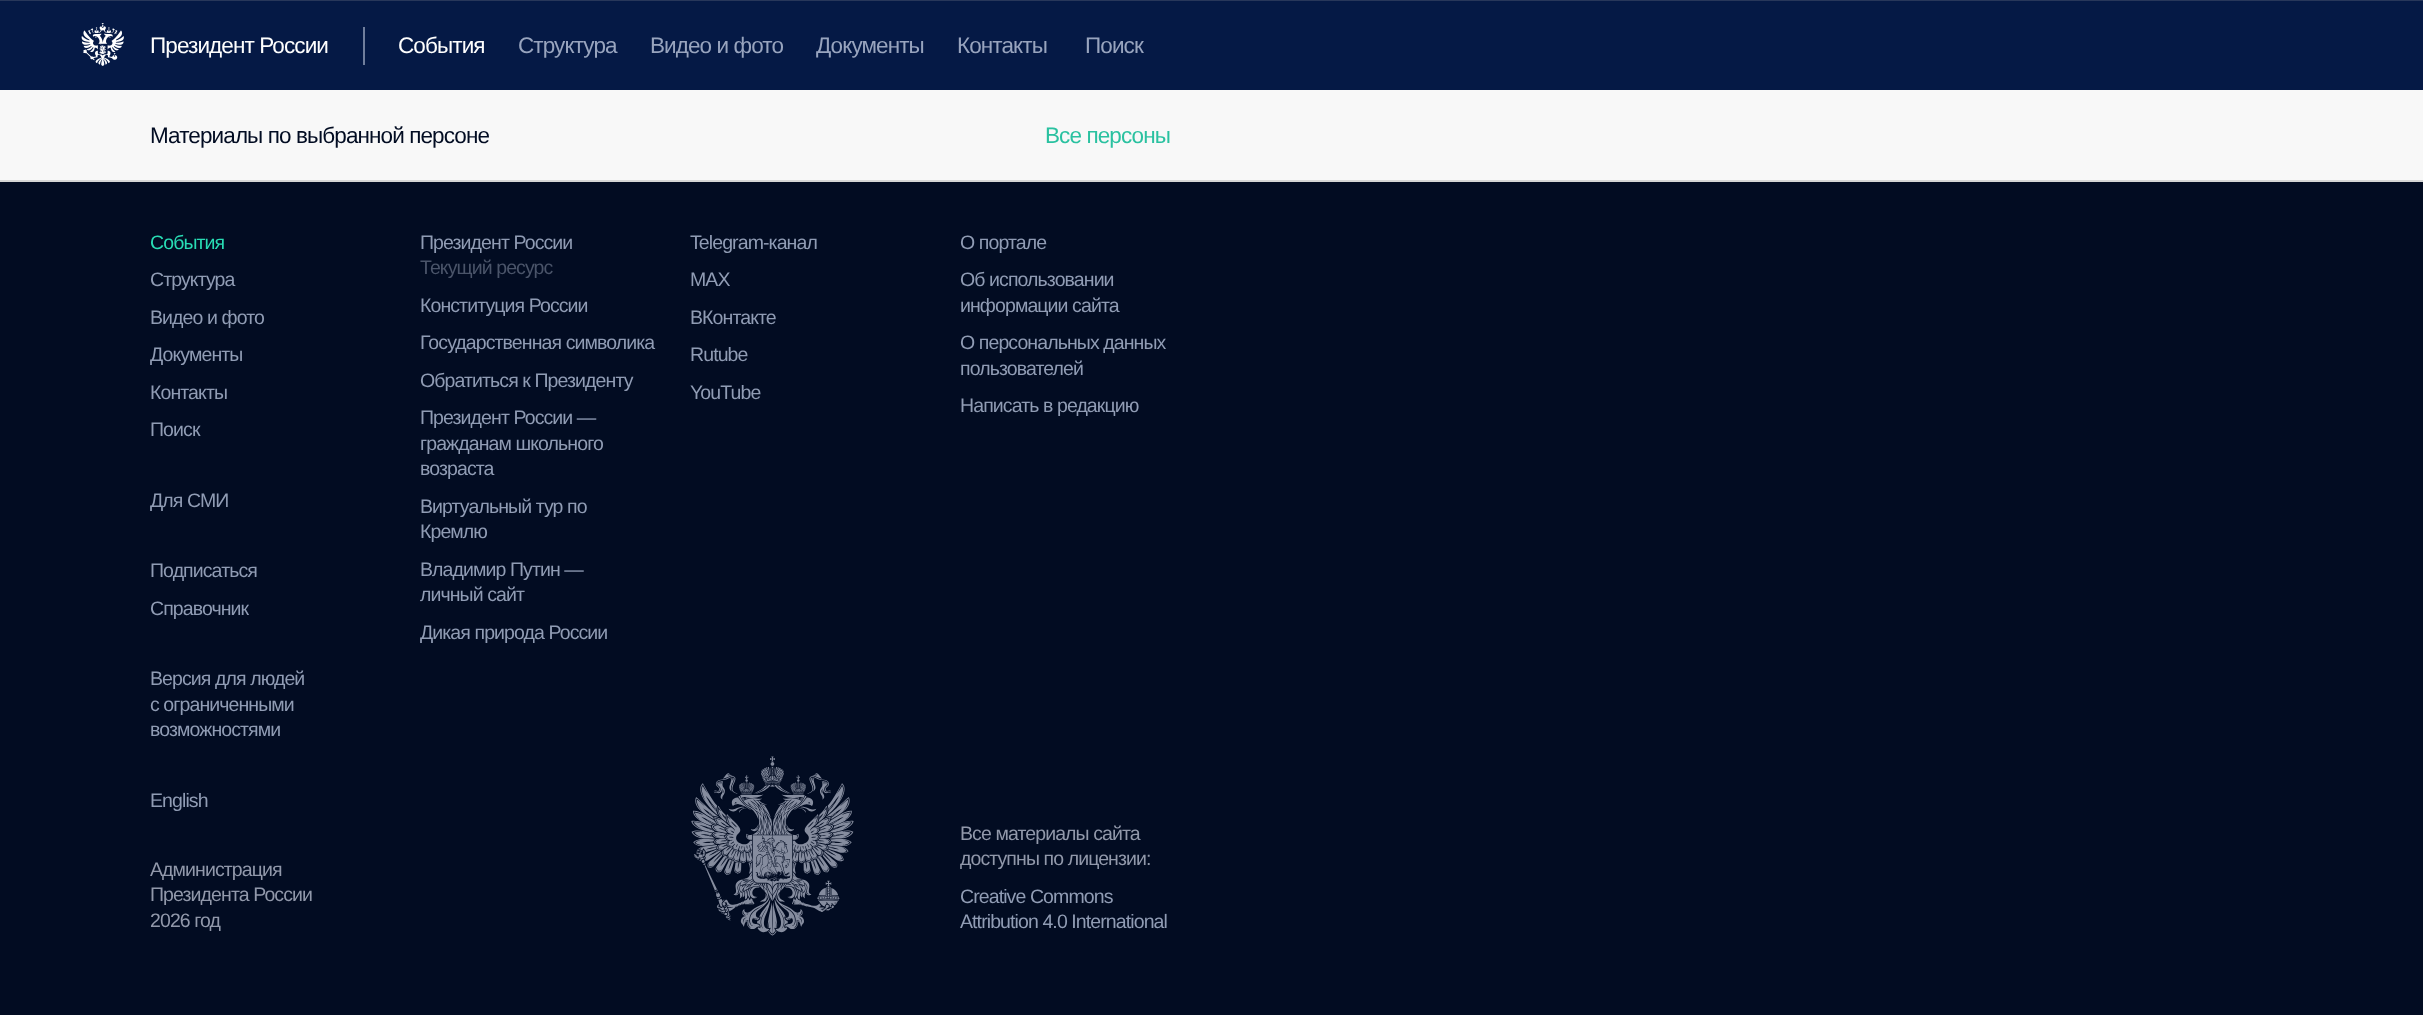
async function draw(canvas) {
  canvas.width = 2423
  canvas.height = 1015
  const ctx = canvas.getContext('2d')
  ctx.miterLimit = 4
  ctx.fontKerning = 'normal'
  async function loadImage(src) {
    const img = new Image()
    img.src = src
    await img.decode()
    return img
  }

  ctx.fillStyle = '#020c22'
  ctx.fillRect(0, 0, 2423, 1015)
  ctx.fillStyle = '#28375a'
  ctx.fillRect(0, 0, 2423, 1)
  ctx.fillStyle = '#051945'
  ctx.fillRect(0, 1, 2423, 89)
  ctx.drawImage(await loadImage('image0.png'), 81, 23, 43, 43)
  ctx.letterSpacing = '-0.9px'
  ctx.font = '22.5px Liberation Sans'
  ctx.fillStyle = '#fefefe'
  ctx.fillText('Президент России', 150, 53)
  ctx.fillStyle = '#707e9c'
  ctx.fillRect(363, 27, 2, 38)
  ctx.fillStyle = '#fefefe'
  ctx.fillText('События', 398, 53)
  ctx.fillStyle = '#98a4be'
  ctx.fillText('Структура', 518, 53)
  ctx.fillText('Видео и фото', 650, 53)
  ctx.fillText('Документы', 816, 53)
  ctx.fillText('Контакты', 957, 53)
  ctx.fillText('Поиск', 1085, 53)
  ctx.fillStyle = '#f8f8f8'
  ctx.fillRect(0, 90, 2423, 90)
  ctx.fillStyle = '#020c22'
  ctx.fillText('Материалы по выбранной персоне', 150, 143)
  ctx.fillStyle = '#2ac1a0'
  ctx.fillText('Все персоны', 1045, 143)
  ctx.fillStyle = '#d6d6d6'
  ctx.fillRect(0, 180, 2423, 2)
  ctx.font = '19.5px Liberation Sans'
  ctx.fillStyle = '#28dcb4'
  ctx.fillText('События', 150, 249)
  ctx.fillStyle = '#909cb4'
  ctx.fillText('Структура', 150, 286)
  ctx.fillText('Видео и фото', 150, 324)
  ctx.fillText('Документы', 150, 361)
  ctx.fillText('Контакты', 150, 399)
  ctx.fillText('Поиск', 150, 436)
  ctx.fillText('Для СМИ', 150, 507)
  ctx.fillText('Подписаться', 150, 577)
  ctx.fillText('Справочник', 150, 615)
  ctx.fillText('Версия для людей', 150, 685)
  ctx.fillText('с ограниченными', 150, 711)
  ctx.fillText('возможностями', 150, 736)
  ctx.fillText('English', 150, 807)
  ctx.fillText('Президент России', 420, 249)
  ctx.fillStyle = '#4a5469'
  ctx.fillText('Текущий ресурс', 420, 274)
  ctx.fillStyle = '#909cb4'
  ctx.fillText('Конституция России', 420, 312)
  ctx.fillText('Государственная символика', 420, 349)
  ctx.fillText('Обратиться к Президенту', 420, 387)
  ctx.fillText('Президент России —', 420, 424)
  ctx.fillText('гражданам школьного', 420, 450)
  ctx.fillText('возраста', 420, 475)
  ctx.fillText('Виртуальный тур по', 420, 513)
  ctx.fillText('Кремлю', 420, 538)
  ctx.fillText('Владимир Путин —', 420, 576)
  ctx.fillText('личный сайт', 420, 601)
  ctx.fillText('Дикая природа России', 420, 639)
  ctx.fillText('Telegram-канал', 690, 249)
  ctx.fillText('MAX', 690, 286)
  ctx.fillText('ВКонтакте', 690, 324)
  ctx.fillText('Rutube', 690, 361)
  ctx.fillText('YouTube', 690, 399)
  ctx.fillText('О портале', 960, 249)
  ctx.fillText('Об использовании', 960, 286)
  ctx.fillText('информации сайта', 960, 312)
  ctx.fillText('О персональных данных', 960, 349)
  ctx.fillText('пользователей', 960, 375)
  ctx.fillText('Написать в редакцию', 960, 412)
  ctx.drawImage(await loadImage('image1.png'), 691, 756, 163, 180)
  ctx.fillStyle = '#9198aa'
  ctx.fillText('Администрация', 150, 876)
  ctx.fillText('Президента России', 150, 901)
  ctx.fillText('2026 год', 150, 927)
  ctx.fillText('Все материалы сайта', 960, 840)
  ctx.fillText('доступны по лицензии:', 960, 865)
  ctx.fillStyle = '#909cb4'
  ctx.fillText('Creative Commons', 960, 903)
  ctx.fillText('Attribution 4.0 International', 960, 928)
}

draw(document.querySelector('canvas'))
